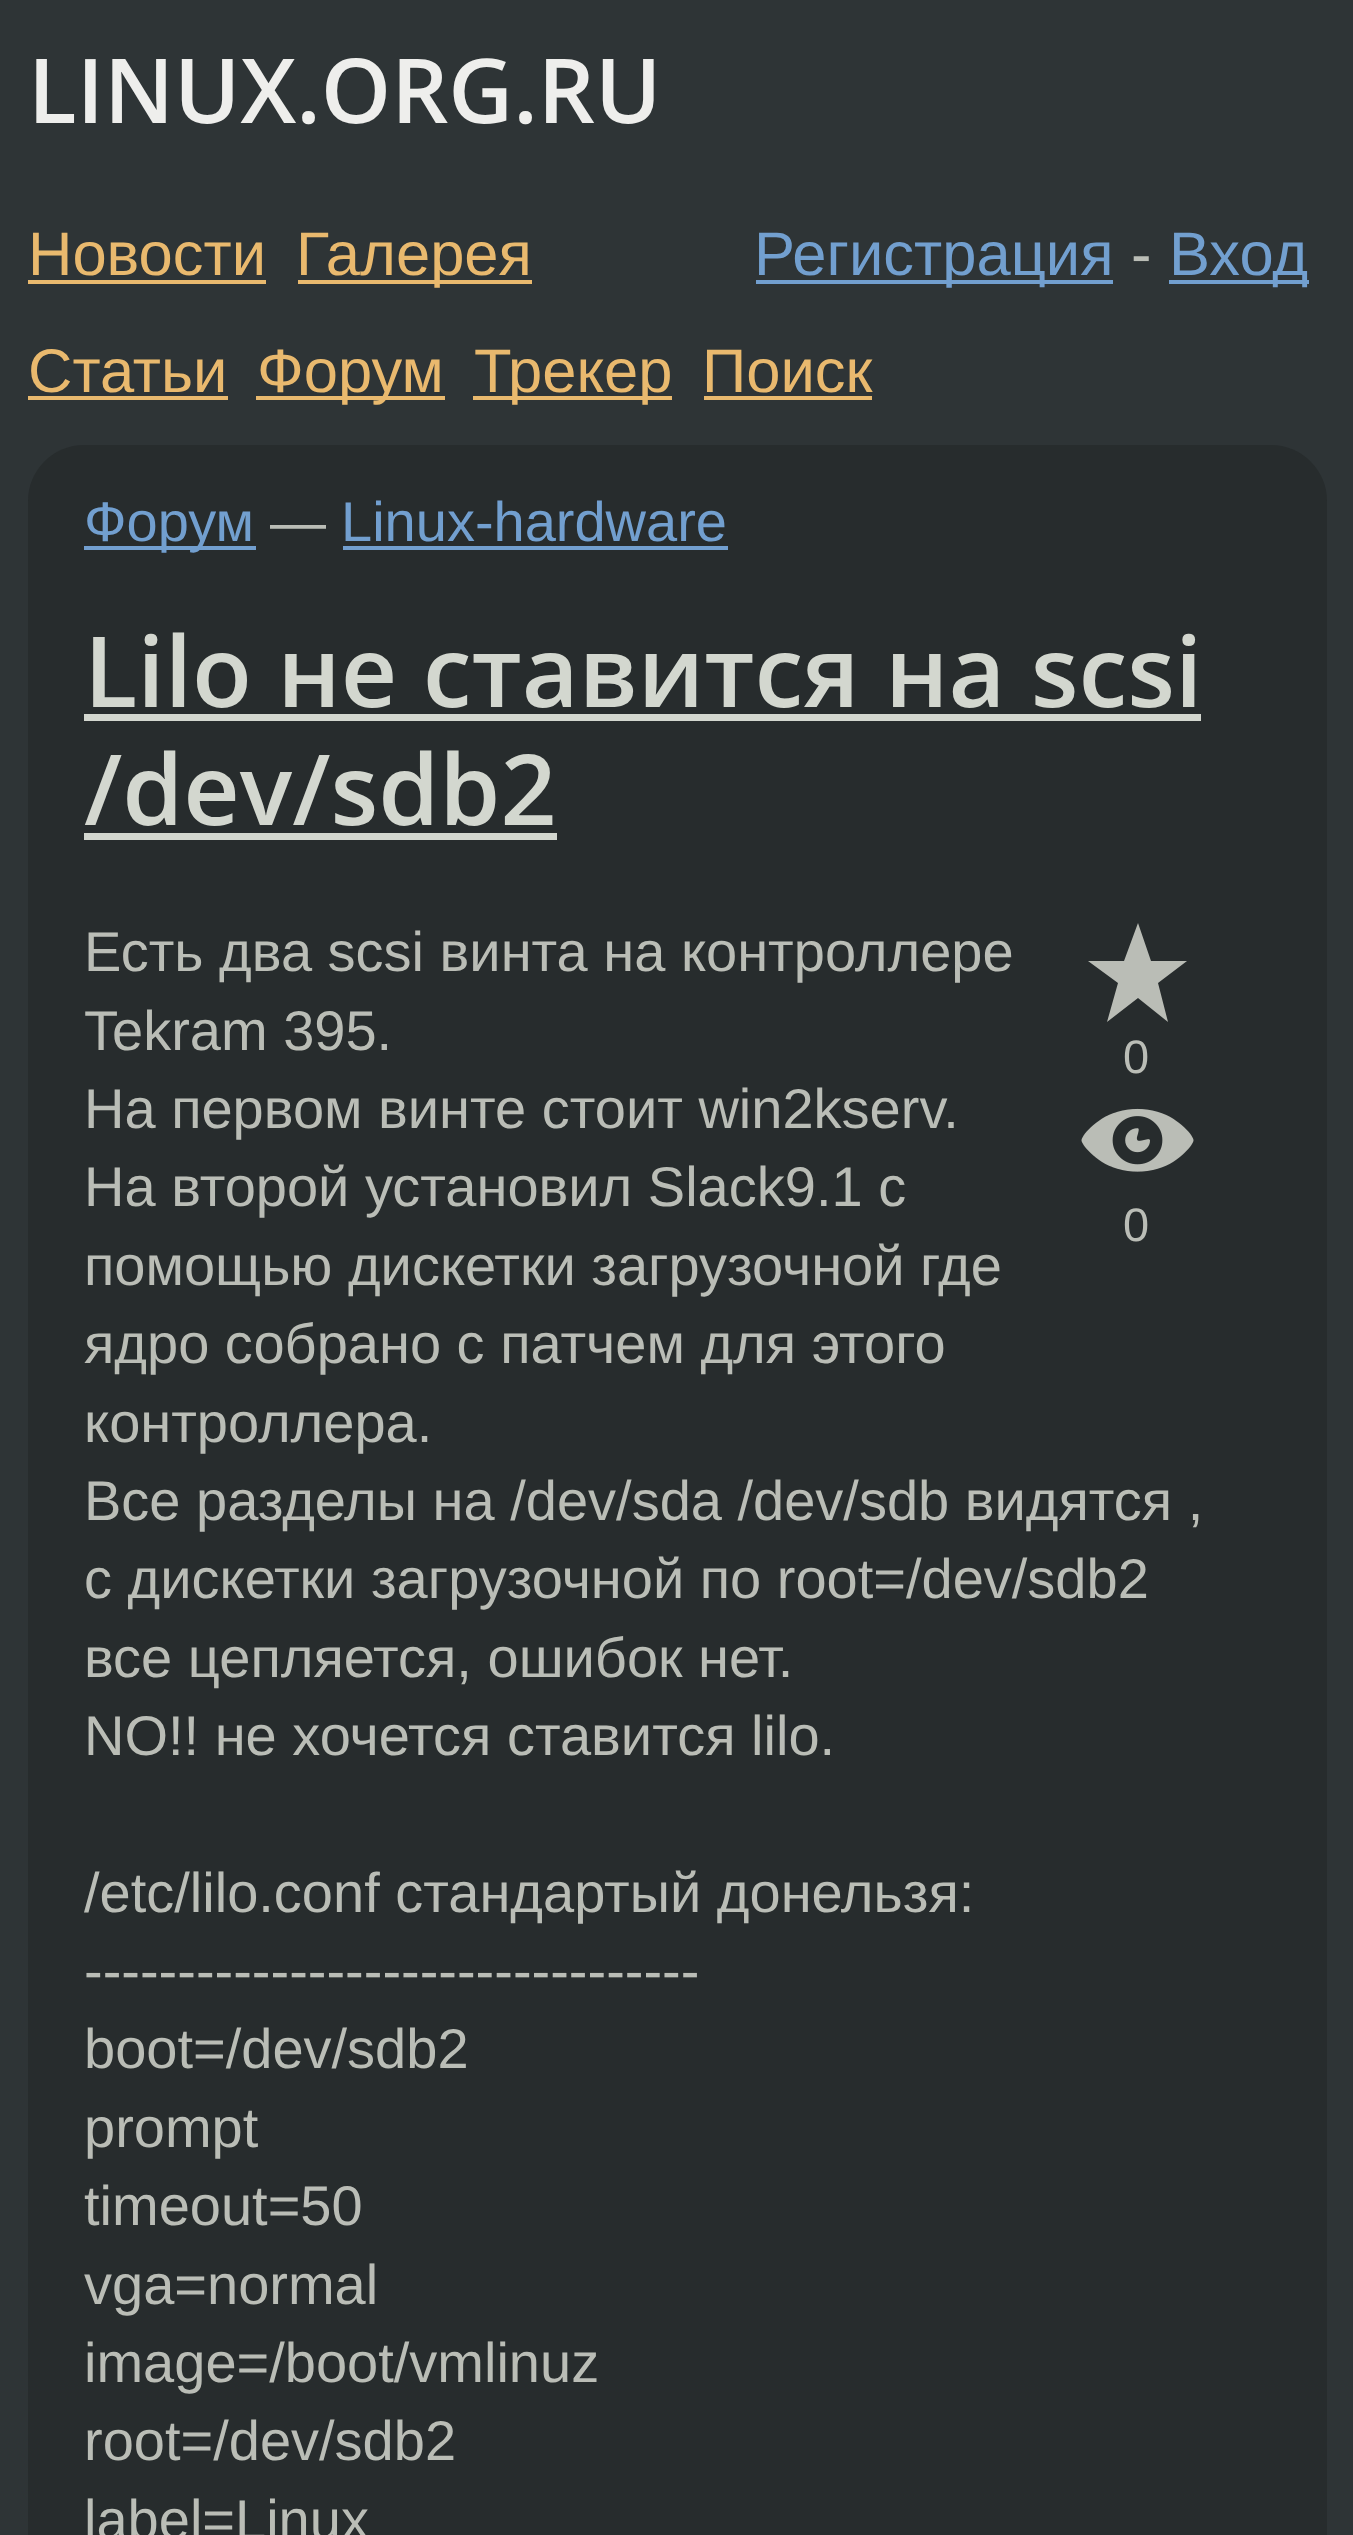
async function draw(canvas) {
  canvas.width = 1353
  canvas.height = 2535
  const ctx = canvas.getContext('2d')
  ctx.miterLimit = 4
  ctx.fontKerning = 'normal'
  async function loadImage(src) {
    const img = new Image()
    img.src = src
    await img.decode()
    return img
  }

  ctx.fillStyle = '#2e3436'
  ctx.fillRect(0, 0, 1353, 2535)
  ctx.font = '600 89.5px Open Sans'
  ctx.fillStyle = '#eeeeec'
  ctx.fillText('LINUX.ORG.RU', 28, 123)
  ctx.font = '61.5px Liberation Sans'
  ctx.fillStyle = '#e9b96e'
  ctx.fillText('Новости', 28, 275)
  ctx.fillRect(28, 280, 238, 4)
  ctx.fillRect(298, 280, 234, 4)
  ctx.fillText('Галерея', 296, 275)
  ctx.fillText('Статьи', 28, 392)
  ctx.fillRect(28, 396, 200, 4)
  ctx.fillRect(256, 396, 189, 4)
  ctx.fillText('Форум', 257, 392)
  ctx.fillRect(473, 396, 199, 4)
  ctx.fillText('Трекер', 474, 392)
  ctx.fillText('Поиск', 702, 392)
  ctx.fillRect(704, 396, 168, 4)
  ctx.fillStyle = '#729fcf'
  ctx.fillRect(756, 280, 357, 4)
  ctx.fillText('Регистрация', 754, 275)
  ctx.fillStyle = '#babdb6'
  ctx.fillText('-', 1131, 275)
  ctx.fillStyle = '#729fcf'
  ctx.fillRect(1169, 280, 140, 4)
  ctx.fillText('Вход', 1169, 275)
  ctx.fillStyle = '#272c2d'
  ctx.beginPath()
  ctx.roundRect(28, 445, 1299, 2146, 56)
  ctx.fill()
  ctx.fillStyle = '#729fcf'
  ctx.fillRect(84, 546, 172, 4)
  ctx.font = '56px Liberation Sans'
  ctx.fillText('Форум', 84, 541)
  ctx.fillStyle = '#babdb6'
  ctx.fillText('—', 270, 541)
  ctx.fillStyle = '#729fcf'
  ctx.fillText('Linux-hardware', 341, 541)
  ctx.fillRect(343, 546, 385, 4)
  ctx.font = '600 98.1px Open Sans'
  ctx.fillStyle = '#d3d7cf'
  ctx.fillText('Lilo не ставится на scsi', 84, 707)
  ctx.fillRect(84, 714, 1117, 7)
  ctx.fillText('/dev/sdb2', 84, 825)
  ctx.fillRect(84, 833, 473, 7)
  ctx.font = '56px Liberation Sans'
  ctx.fillStyle = '#babdb6'
  ctx.fillText('Есть два scsi винта на контроллере', 84, 971)
  ctx.fillText('Tekram 395.', 84, 1050)
  ctx.fillText('На первом винте стоит win2kserv.', 84, 1128)
  ctx.fillText('На второй установил Slack9.1 с', 84, 1206)
  ctx.fillText('помощью дискетки загрузочной где', 84, 1285)
  ctx.fillText('ядро собрано с патчем для этого', 84, 1363)
  ctx.fillText('контроллера.', 84, 1442)
  ctx.fillText('Все разделы на /dev/sda /dev/sdb видятся ,', 84, 1520)
  ctx.fillText('с дискетки загрузочной по root=/dev/sdb2', 84, 1598)
  ctx.fillText('все цепляется, ошибок нет.', 84, 1677)
  ctx.fillText('NO!! не хочется ставится lilo.', 84, 1755)
  ctx.fillText('/etc/lilo.conf стандартый донельзя:', 84, 1912)
  ctx.fillText('---------------------------------', 84, 1990)
  ctx.fillText('boot=/dev/sdb2', 84, 2068)
  ctx.fillText('prompt', 84, 2147)
  ctx.fillText('timeout=50', 84, 2225)
  ctx.fillText('vga=normal', 84, 2304)
  ctx.fillText('image=/boot/vmlinuz', 84, 2382)
  ctx.fillText('root=/dev/sdb2', 84, 2460)
  ctx.fillText('label=Linux', 84, 2539)
  ctx.beginPath()
  ctx.moveTo(1138, 923)
  ctx.lineTo(1151, 961)
  ctx.lineTo(1187, 961)
  ctx.lineTo(1158, 983)
  ctx.lineTo(1168, 1022)
  ctx.lineTo(1138, 998)
  ctx.lineTo(1107, 1022)
  ctx.lineTo(1118, 983)
  ctx.lineTo(1088, 961)
  ctx.lineTo(1124, 961)
  ctx.closePath()
  ctx.fill()
  ctx.font = '47px Liberation Sans'
  ctx.fillText('0', 1123, 1073)
  ctx.drawImage(await loadImage('image0.png'), 1081, 1108, 113, 64)
  ctx.fillText('0', 1123, 1241)
}

draw(document.querySelector('canvas'))
